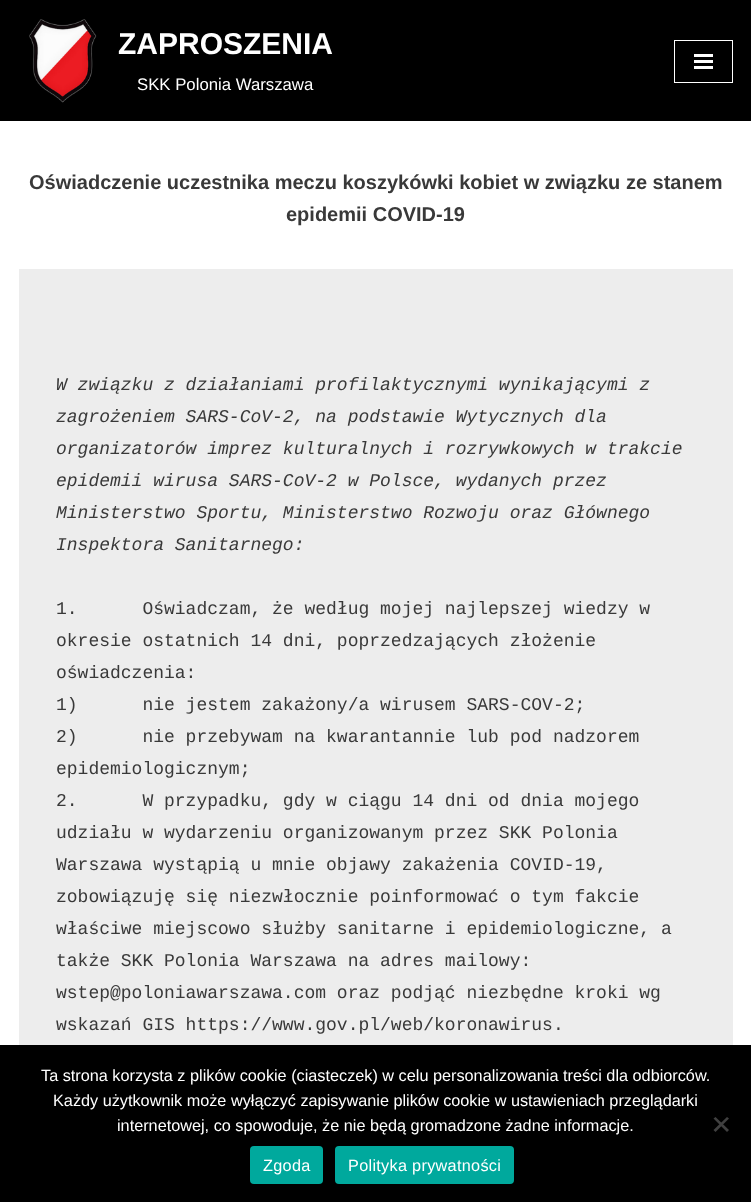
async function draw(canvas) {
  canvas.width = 751
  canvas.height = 1202
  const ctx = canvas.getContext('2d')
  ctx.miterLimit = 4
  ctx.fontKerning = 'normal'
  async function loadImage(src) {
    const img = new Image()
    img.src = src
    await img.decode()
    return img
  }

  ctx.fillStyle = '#fff'
  ctx.fillRect(0, 0, 751, 1202)
  ctx.fillStyle = '#000'
  ctx.fillRect(0, 0, 751, 121)
  ctx.drawImage(await loadImage('image0.png'), 29, 19, 68, 84)
  ctx.font = 'bold 30px Liberation Sans'
  ctx.fillStyle = '#fff'
  ctx.fillText('ZAPROSZENIA', 118, 54)
  ctx.font = '16.75px Liberation Sans'
  ctx.fillText('SKK Polonia Warszawa', 137, 90)
  ctx.strokeStyle = '#fff'
  ctx.strokeRect(674.5, 40.5, 58, 42)
  ctx.fillRect(694, 54, 19, 3)
  ctx.fillRect(694, 60, 19, 3)
  ctx.fillRect(694, 66, 19, 3)
  ctx.font = 'bold 20px Liberation Sans'
  ctx.fillStyle = '#393939'
  ctx.fillText('Oświadczenie uczestnika meczu koszykówki kobiet w związku ze stanem', 29, 189)
  ctx.fillText('epidemii COVID-19', 286, 221)
  ctx.fillStyle = '#ededed'
  ctx.fillRect(19, 269, 714, 776)
  ctx.font = 'italic 18px Liberation Mono'
  ctx.fillStyle = '#393939'
  ctx.fillText('W związku z działaniami profilaktycznymi wynikającymi z', 56, 390)
  ctx.fillText('zagrożeniem SARS-CoV-2, na podstawie Wytycznych dla', 56, 422)
  ctx.fillText('organizatorów imprez kulturalnych i rozrywkowych w trakcie', 56, 454)
  ctx.fillText('epidemii wirusa SARS-CoV-2 w Polsce, wydanych przez', 56, 486)
  ctx.fillText('Ministerstwo Sportu, Ministerstwo Rozwoju oraz Głównego', 56, 518)
  ctx.fillText('Inspektora Sanitarnego:', 56, 550)
  ctx.font = '18px Liberation Mono'
  ctx.fillText('1.      Oświadczam, że według mojej najlepszej wiedzy w', 56, 614)
  ctx.fillText('okresie ostatnich 14 dni, poprzedzających złożenie', 56, 646)
  ctx.fillText('oświadczenia:', 56, 678)
  ctx.fillText('1)      nie jestem zakażony/a wirusem SARS-COV-2;', 56, 710)
  ctx.fillText('2)      nie przebywam na kwarantannie lub pod nadzorem', 56, 742)
  ctx.fillText('epidemiologicznym;', 56, 774)
  ctx.fillText('2.      W przypadku, gdy w ciągu 14 dni od dnia mojego', 56, 806)
  ctx.fillText('udziału w wydarzeniu organizowanym przez SKK Polonia', 56, 838)
  ctx.fillText('Warszawa wystąpią u mnie objawy zakażenia COVID-19,', 56, 870)
  ctx.fillText('zobowiązuję się niezwłocznie poinformować o tym fakcie', 56, 902)
  ctx.fillText('właściwe miejscowo służby sanitarne i epidemiologiczne, a', 56, 934)
  ctx.fillText('także SKK Polonia Warszawa na adres mailowy:', 56, 966)
  ctx.fillText('wstep@poloniawarszawa.com oraz podjąć niezbędne kroki wg', 56, 998)
  ctx.fillText('wskazań GIS https://www.gov.pl/web/koronawirus.', 56, 1030)
  ctx.fillStyle = '#000'
  ctx.fillRect(0, 1045, 751, 157)
  ctx.font = '16.25px Liberation Sans'
  ctx.fillStyle = '#fff'
  ctx.fillText('Ta strona korzysta z plików cookie (ciasteczek) w celu personalizowania treści dla odbiorców.', 41, 1081)
  ctx.fillText('Każdy użytkownik może wyłączyć zapisywanie plików cookie w ustawieniach przeglądarki', 53, 1106)
  ctx.fillText('internetowej, co spowoduje, że nie będą gromadzone żadne informacje.', 117, 1131)
  ctx.fillStyle = '#404040'
  ctx.beginPath()
  ctx.moveTo(727, 1117)
  ctx.lineTo(729, 1118.5)
  ctx.lineTo(715.5, 1132)
  ctx.lineTo(713.5, 1130)
  ctx.closePath()
  ctx.fill()
  ctx.beginPath()
  ctx.moveTo(713.5, 1118.5)
  ctx.lineTo(715.5, 1117)
  ctx.lineTo(729, 1130)
  ctx.lineTo(727, 1132)
  ctx.closePath()
  ctx.fill()
  ctx.fillStyle = '#00a99d'
  ctx.beginPath()
  ctx.roundRect(250, 1146, 73, 38, 4)
  ctx.fill()
  ctx.letterSpacing = '0.3px'
  ctx.fillStyle = '#fff'
  ctx.fillText('Zgoda', 263, 1171)
  ctx.fillStyle = '#00a99d'
  ctx.beginPath()
  ctx.roundRect(335, 1146, 179, 38, 4)
  ctx.fill()
  ctx.fillStyle = '#fff'
  ctx.fillText('Polityka prywatności', 348, 1171)
}

draw(document.querySelector('canvas'))
